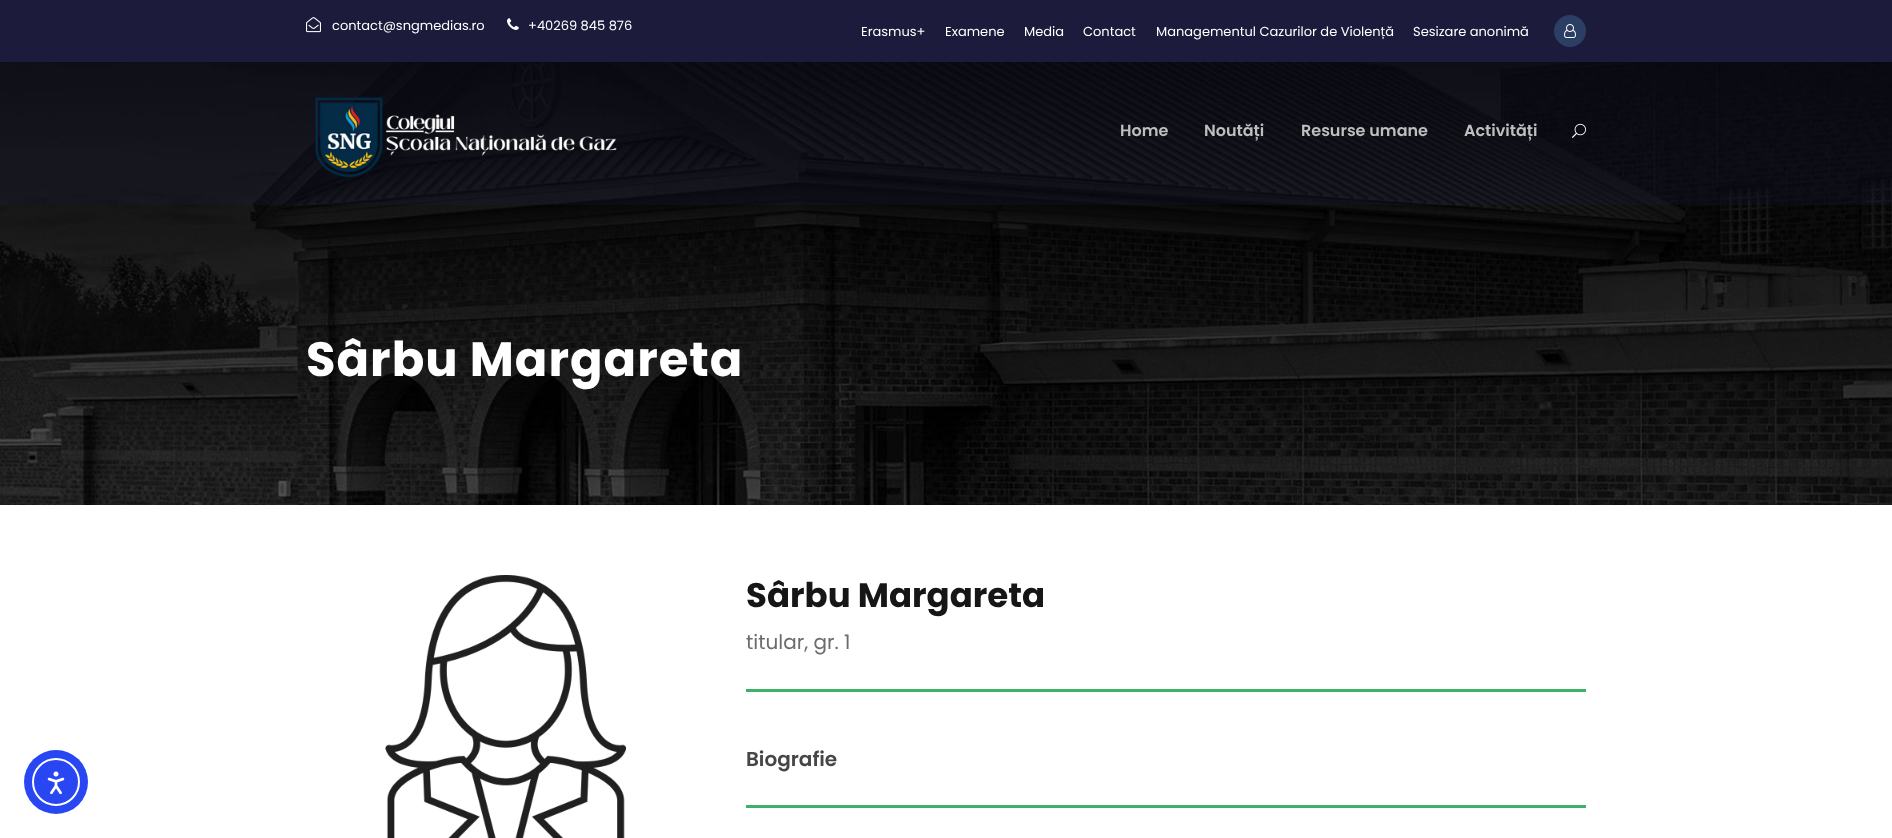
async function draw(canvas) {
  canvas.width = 1892
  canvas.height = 838
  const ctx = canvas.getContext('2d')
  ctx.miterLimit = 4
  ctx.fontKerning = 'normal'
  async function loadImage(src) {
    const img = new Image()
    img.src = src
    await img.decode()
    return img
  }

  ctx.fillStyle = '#fff'
  ctx.fillRect(0, 0, 1892, 838)
  ctx.fillStyle = '#1c1b3b'
  ctx.fillRect(0, 0, 1892, 62)
  ctx.drawImage(await loadImage('image0.png'), 306, 17, 15, 16)
  ctx.font = '13px Poppins'
  ctx.fillStyle = '#fff'
  ctx.fillText('contact@sngmedias.ro', 332, 30)
  ctx.drawImage(await loadImage('image1.png'), 507, 18, 12, 12)
  ctx.fillText('+40269 845 876', 528, 30)
  ctx.fillText('Erasmus+', 861, 36)
  ctx.fillText('Examene', 945, 36)
  ctx.fillText('Media', 1024, 36)
  ctx.fillText('Contact', 1083, 36)
  ctx.fillText('Managementul Cazurilor de Violență', 1156, 36)
  ctx.fillText('Sesizare anonimă', 1413, 36)
  ctx.fillStyle = '#2b3f65'
  ctx.beginPath()
  ctx.arc(1570, 31, 16, 0, 2 * Math.PI)
  ctx.fill()
  ctx.drawImage(await loadImage('image2.png'), 1564, 24, 12, 14)
  ctx.drawImage(await loadImage('image5.png'), 0, 62, 1892, 443)
  ctx.fillStyle = '#1c1b3b40'
  ctx.fillRect(0, 62, 1892, 143)
  ctx.drawImage(await loadImage('image3.png'), 315, 97, 302, 80)
  ctx.font = '600 16px Poppins'
  ctx.fillStyle = '#bfbfbf'
  ctx.fillText('Home', 1120, 136)
  ctx.fillText('Noutăți', 1204, 136)
  ctx.fillText('Resurse umane', 1301, 136)
  ctx.fillText('Activități', 1464, 136)
  ctx.drawImage(await loadImage('image4.png'), 1572, 123, 14, 15)
  ctx.letterSpacing = '1px'
  ctx.font = 'bold 48px Poppins'
  ctx.fillStyle = '#fff'
  ctx.fillText('Sârbu Margareta', 306, 376)
  ctx.drawImage(await loadImage('image6.png'), 385, 575, 241, 263)
  ctx.letterSpacing = '0px'
  ctx.font = 'bold 34px Poppins'
  ctx.fillStyle = '#161616'
  ctx.fillText('Sârbu Margareta', 746, 607)
  ctx.font = '20px Poppins'
  ctx.fillStyle = '#6c6c6c'
  ctx.fillText('titular, gr. 1', 746, 649)
  ctx.fillStyle = '#3db166'
  ctx.fillRect(746, 689, 840, 3)
  ctx.font = '600 20px Poppins'
  ctx.fillStyle = '#464646'
  ctx.fillText('Biografie', 746, 766)
  ctx.fillStyle = '#3db166'
  ctx.fillRect(746, 805, 840, 3)
  ctx.fillStyle = '#2847f3'
  ctx.beginPath()
  ctx.arc(56, 782, 32, 0, 2 * Math.PI)
  ctx.fill()
  ctx.beginPath()
  ctx.arc(56, 782, 23, 0, 2 * Math.PI)
  ctx.strokeStyle = '#fff'
  ctx.lineWidth = 2
  ctx.stroke()
  ctx.drawImage(await loadImage('image7.png'), 47, 771, 18, 24)
}

draw(document.querySelector('canvas'))
